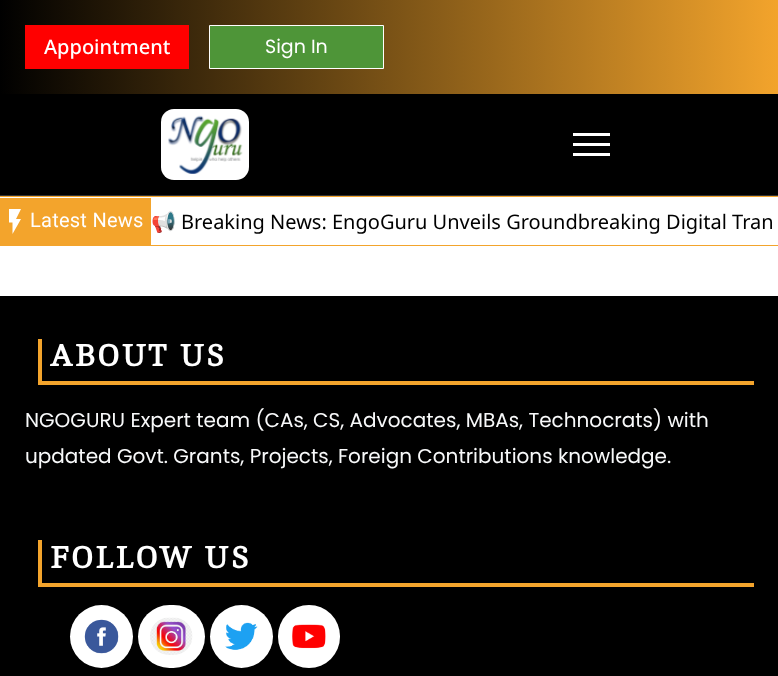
async function draw(canvas) {
  canvas.width = 778
  canvas.height = 676
  const ctx = canvas.getContext('2d')
  ctx.miterLimit = 4
  ctx.fontKerning = 'normal'
  async function loadImage(src) {
    const img = new Image()
    img.src = src
    await img.decode()
    return img
  }
  let gradient

  ctx.fillStyle = '#fff'
  ctx.fillRect(0, 0, 778, 676)
  gradient = ctx.createLinearGradient(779, 47, 0, 47)
  gradient.addColorStop(0, '#f3a42c')
  gradient.addColorStop(1, '#000')
  ctx.fillStyle = gradient
  ctx.fillRect(0, 0, 778, 94)
  ctx.fillStyle = '#f00'
  ctx.fillRect(25, 25, 164, 44)
  ctx.font = '500 20px Noto Sans'
  ctx.fillStyle = '#fff'
  ctx.fillText('Appointment', 44, 54)
  ctx.fillStyle = '#4e9538'
  ctx.beginPath()
  ctx.rect(209.5, 25.5, 174, 43)
  ctx.fill()
  ctx.strokeStyle = '#fff'
  ctx.stroke()
  ctx.font = '19px Poppins'
  ctx.fillStyle = '#fff'
  ctx.fillText('Sign In', 265, 53)
  ctx.fillStyle = '#000'
  ctx.fillRect(0, 94, 778, 101)
  ctx.fillStyle = '#333'
  ctx.fillRect(0, 195, 778, 1)
  ctx.fillStyle = '#fff'
  ctx.beginPath()
  ctx.roundRect(161, 109, 88, 71, 13)
  ctx.fill()
  ctx.drawImage(await loadImage('image0.png'), 168, 115, 75, 59)
  ctx.fillRect(573, 133, 37, 3)
  ctx.fillRect(573, 143, 37, 3)
  ctx.fillRect(573, 153, 37, 3)
  ctx.fillStyle = '#f3a42c'
  ctx.fillRect(0, 196, 778, 1)
  ctx.fillRect(0, 245, 778, 1)
  ctx.fillRect(0, 198, 151, 47)
  ctx.fillStyle = '#fff'
  ctx.beginPath()
  ctx.moveTo(9, 209)
  ctx.lineTo(9, 222.5)
  ctx.lineTo(12.5, 222.5)
  ctx.lineTo(12.5, 234)
  ctx.lineTo(21, 219)
  ctx.lineTo(16, 219)
  ctx.lineTo(21, 209)
  ctx.closePath()
  ctx.fill()
  ctx.letterSpacing = '0.25px'
  ctx.font = '20px Roboto'
  ctx.fillText('Latest News', 30, 227)
  ctx.letterSpacing = '0px'
  ctx.font = '20px Noto Color Emoji'
  ctx.fillStyle = '#000'
  ctx.fillText('📢', 151, 229)
  ctx.font = '20px Noto Sans'
  ctx.fillText('Breaking News: EngoGuru Unveils Groundbreaking Digital Tran', 181, 229)
  ctx.fillRect(0, 296, 778, 380)
  ctx.fillStyle = '#f3a42c'
  ctx.fillRect(38, 381, 716, 4)
  ctx.fillRect(38, 339, 4, 46)
  ctx.letterSpacing = '2.5px'
  ctx.font = 'bold 31.25px Cambo'
  ctx.fillStyle = '#fff'
  ctx.fillText('ABOUT US', 50, 366)
  ctx.letterSpacing = '0px'
  ctx.font = '20px Poppins'
  ctx.fillStyle = '#f8f9fa'
  ctx.fillText('NGOGURU Expert team (CAs, CS, Advocates, MBAs, Technocrats) with', 25, 427)
  ctx.fillText('updated Govt. Grants, Projects, Foreign Contributions knowledge.', 25, 463)
  ctx.fillStyle = '#f3a42c'
  ctx.fillRect(38, 583, 716, 4)
  ctx.fillRect(38, 540, 4, 46)
  ctx.letterSpacing = '2.5px'
  ctx.font = 'bold 31.25px Cambo'
  ctx.fillStyle = '#fff'
  ctx.fillText('FOLLOW US', 50, 568)
  ctx.beginPath()
  ctx.arc(101.5, 636.5, 31.5, 0, 2 * Math.PI)
  ctx.fill()
  ctx.drawImage(await loadImage('image1.png'), 84, 619, 35, 35)
  ctx.beginPath()
  ctx.roundRect(138, 605, 67, 63, 31.5)
  ctx.fill()
  ctx.drawImage(await loadImage('image2.png'), 150, 617, 43, 38)
  ctx.beginPath()
  ctx.arc(241.5, 636.5, 31.5, 0, 2 * Math.PI)
  ctx.fill()
  ctx.drawImage(await loadImage('image3.png'), 225, 622, 33, 28)
  ctx.beginPath()
  ctx.roundRect(278, 605, 62, 63, 31)
  ctx.fill()
  ctx.drawImage(await loadImage('image4.png'), 292, 624, 34, 25)
}

draw(document.querySelector('canvas'))
